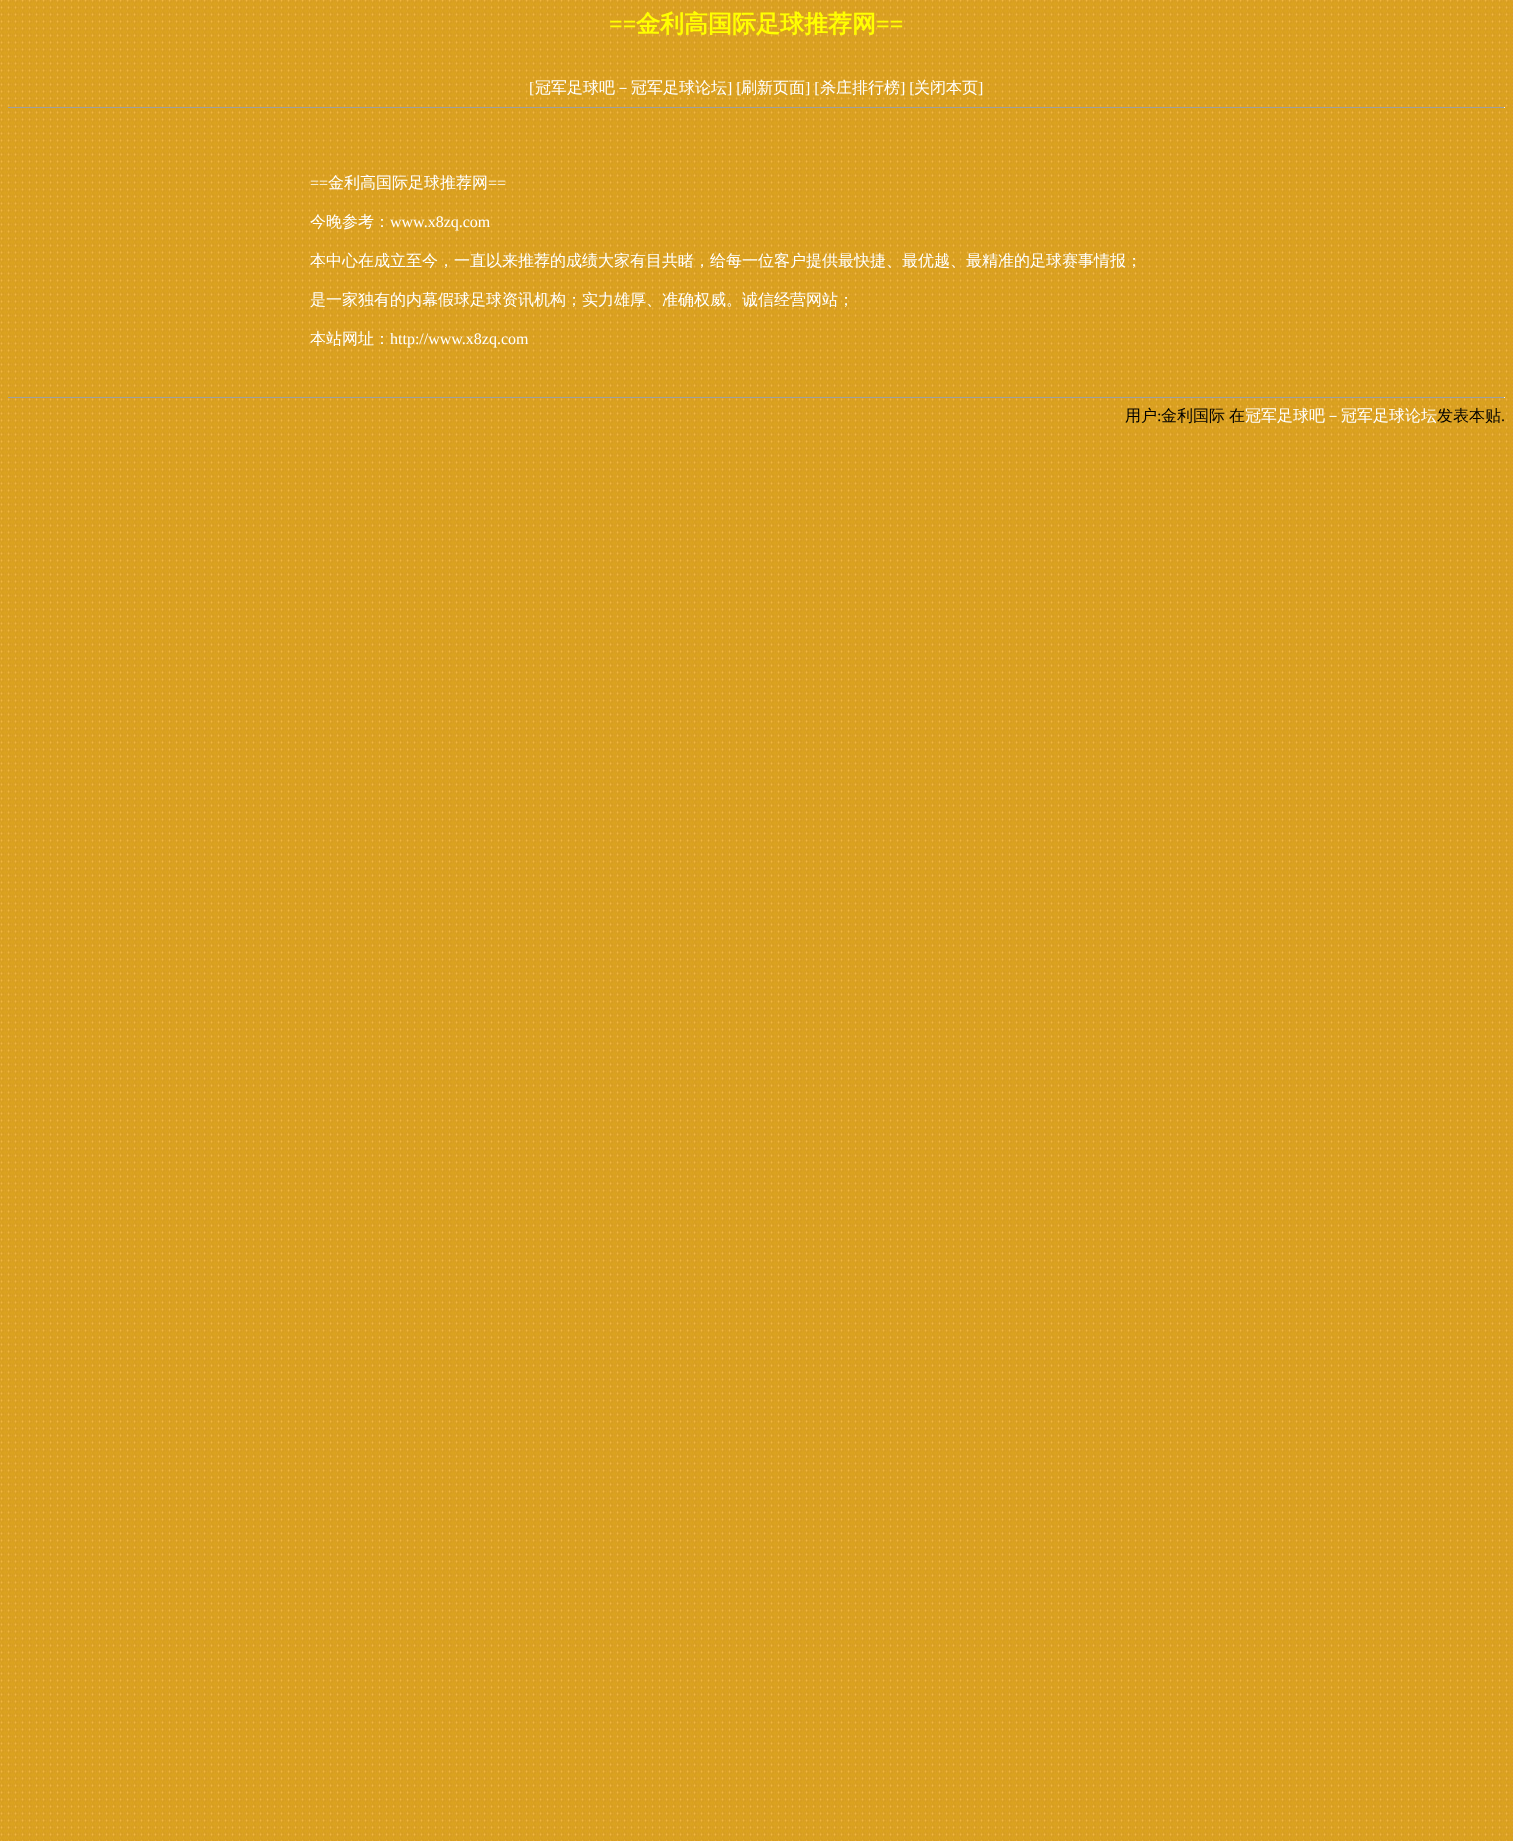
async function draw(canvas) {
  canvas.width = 1513
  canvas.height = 1841
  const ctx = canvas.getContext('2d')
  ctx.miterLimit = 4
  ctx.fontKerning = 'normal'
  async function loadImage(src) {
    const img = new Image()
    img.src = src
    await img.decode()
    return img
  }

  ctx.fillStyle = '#fff'
  ctx.fillRect(0, 0, 1513, 1841)
  ctx.drawImage(await loadImage('image0.png'), 0, 0, 1513, 1841)
  ctx.font = 'bold 24px Liberation Serif'
  ctx.fillStyle = '#ff0'
  ctx.fillText('==', 609, 32)
  ctx.font = 'bold 24px WenQuanYi Zen Hei'
  ctx.fillText('金利高国际足球推荐网', 636, 32)
  ctx.font = 'bold 24px Liberation Serif'
  ctx.fillText('==', 876, 32)
  ctx.font = '16px Liberation Serif'
  ctx.fillStyle = '#fff'
  ctx.fillText('[', 529, 93)
  ctx.font = '500 16px WenQuanYi Zen Hei'
  ctx.fillText('冠军足球吧－冠军足球论坛', 535, 93)
  ctx.font = '16px Liberation Serif'
  ctx.fillText('] [', 727, 93)
  ctx.font = '500 16px WenQuanYi Zen Hei'
  ctx.fillText('刷新页面', 741, 93)
  ctx.font = '16px Liberation Serif'
  ctx.fillText('] [', 805, 93)
  ctx.font = '500 16px WenQuanYi Zen Hei'
  ctx.fillText('杀庄排行榜', 820, 93)
  ctx.font = '16px Liberation Serif'
  ctx.fillText('] [', 900, 93)
  ctx.font = '500 16px WenQuanYi Zen Hei'
  ctx.fillText('关闭本页', 914, 93)
  ctx.font = '16px Liberation Serif'
  ctx.fillText(']', 978, 93)
  ctx.fillStyle = '#9f9f9f'
  ctx.fillRect(8, 107, 1497, 1)
  ctx.fillStyle = '#eee'
  ctx.fillRect(1504, 107, 1, 1)
  ctx.fillStyle = '#fff'
  ctx.fillText('==', 310, 188)
  ctx.font = '500 16px WenQuanYi Zen Hei'
  ctx.fillText('金利高国际足球推荐网', 328, 188)
  ctx.font = '16px Liberation Serif'
  ctx.fillText('==', 488, 188)
  ctx.font = '500 16px WenQuanYi Zen Hei'
  ctx.fillText('今晚参考：', 310, 227)
  ctx.font = '16px Liberation Serif'
  ctx.fillText('www.x8zq.com', 390, 227)
  ctx.font = '500 16px WenQuanYi Zen Hei'
  ctx.fillText('本中心在成立至今，一直以来推荐的成绩大家有目共睹，给每一位客户提供最快捷、最优越、最精准的足球赛事情报；', 310, 266)
  ctx.fillText('是一家独有的内幕假球足球资讯机构；实力雄厚、准确权威。诚信经营网站；', 310, 305)
  ctx.fillText('本站网址：', 310, 344)
  ctx.font = '16px Liberation Serif'
  ctx.fillText('http://www.x8zq.com', 390, 344)
  ctx.fillStyle = '#9f9f9f'
  ctx.fillRect(8, 397, 1497, 1)
  ctx.fillStyle = '#eee'
  ctx.fillRect(1504, 397, 1, 1)
  ctx.font = '500 16px WenQuanYi Zen Hei'
  ctx.fillStyle = '#000'
  ctx.fillText('用户', 1125, 421)
  ctx.font = '16px Liberation Serif'
  ctx.fillText(':', 1157, 421)
  ctx.font = '500 16px WenQuanYi Zen Hei'
  ctx.fillText('金利国际', 1161, 421)
  ctx.fillText('在', 1229, 421)
  ctx.fillStyle = '#fff'
  ctx.fillText('冠军足球吧－冠军足球论坛', 1245, 421)
  ctx.fillStyle = '#000'
  ctx.fillText('发表本贴', 1437, 421)
  ctx.font = '16px Liberation Serif'
  ctx.fillText('.', 1501, 421)
}

draw(document.querySelector('canvas'))
